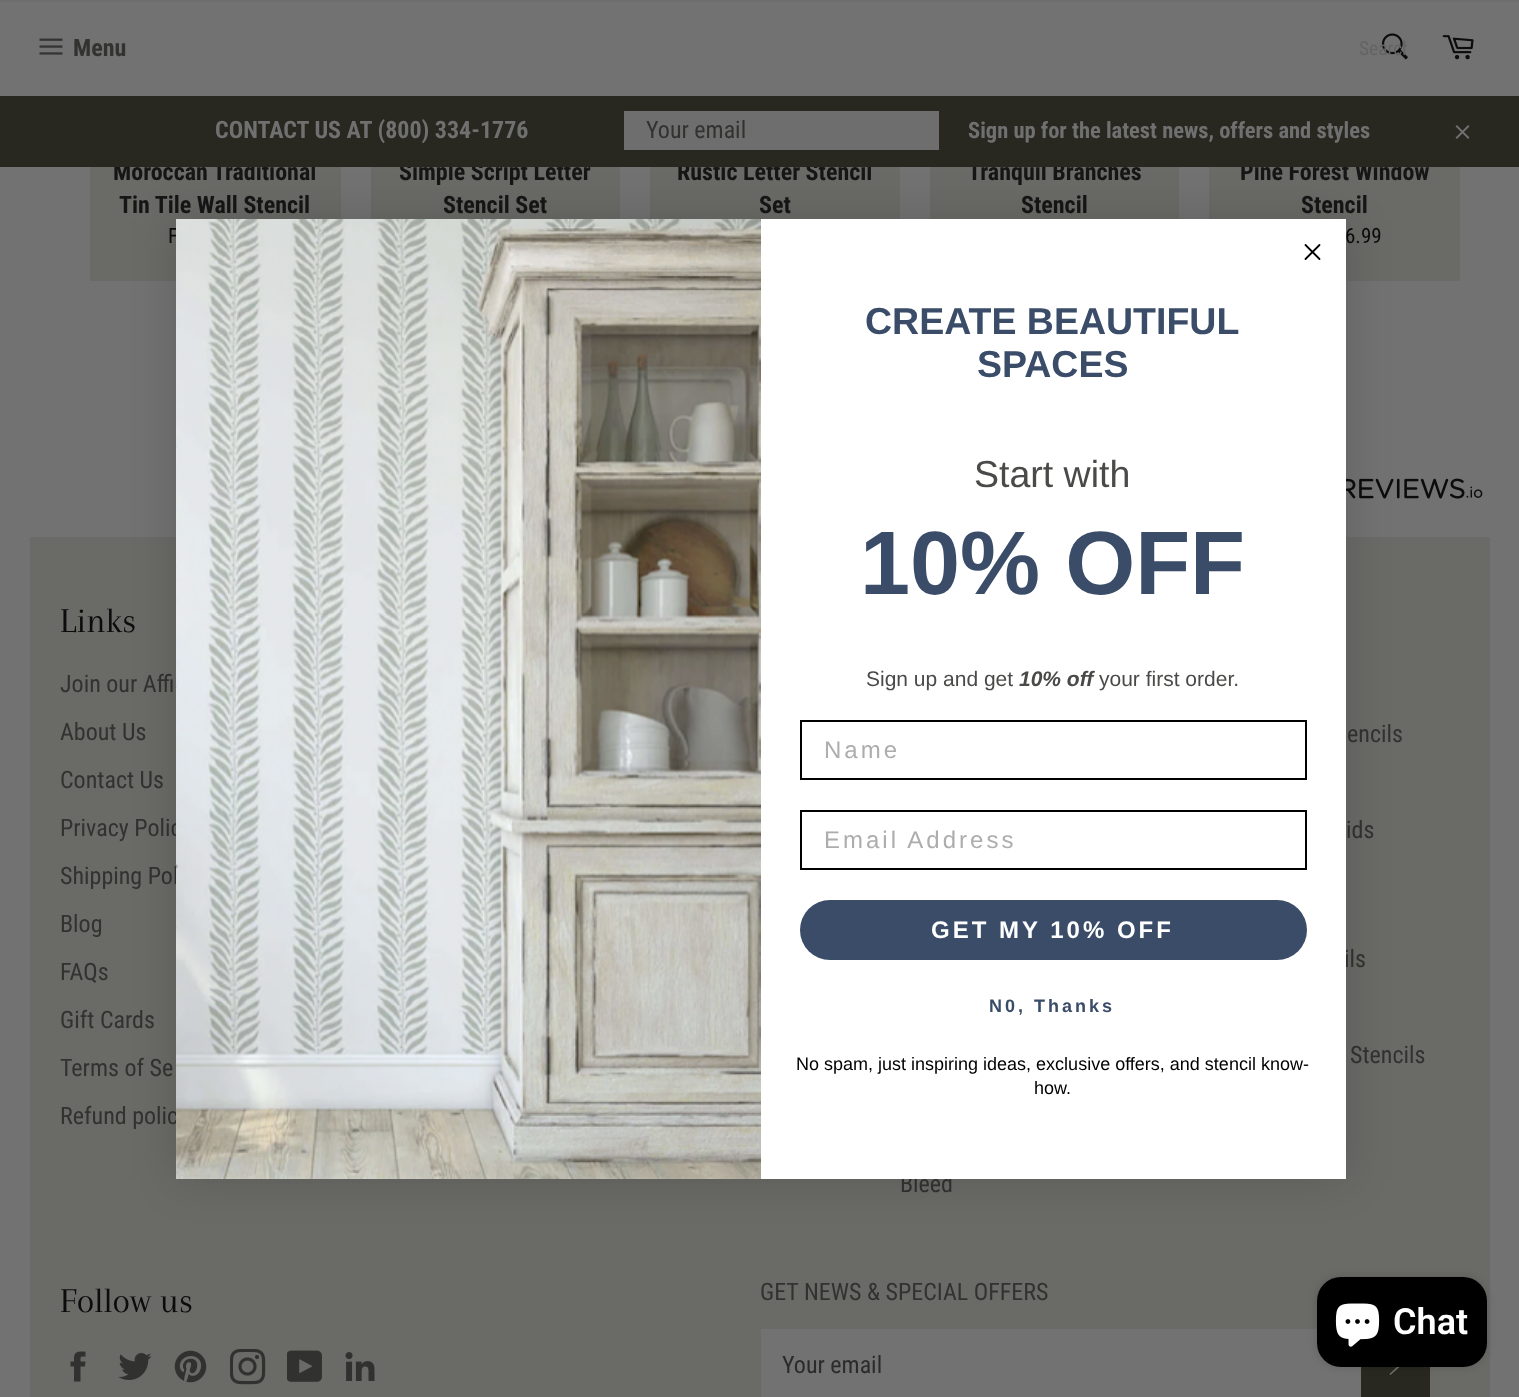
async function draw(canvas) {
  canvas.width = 1519
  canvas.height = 1397
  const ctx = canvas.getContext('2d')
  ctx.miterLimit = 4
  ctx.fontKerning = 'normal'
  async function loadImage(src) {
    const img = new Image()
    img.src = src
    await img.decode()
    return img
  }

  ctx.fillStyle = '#727272'
  ctx.fillRect(0, 0, 1519, 1397)
  ctx.fillStyle = '#6d6d6d'
  ctx.fillRect(0, 0, 1519, 2)
  ctx.drawImage(await loadImage('image0.png'), 39, 38, 24, 17)
  ctx.font = 'bold 24px Roboto Condensed'
  ctx.fillStyle = '#323230'
  ctx.fillText('Menu', 73, 56)
  ctx.drawImage(await loadImage('image1.png'), 1381, 33, 27, 27)
  ctx.save()
  ctx.beginPath()
  ctx.rect(1359, 38, 48, 22)
  ctx.clip()
  ctx.font = '19.5px Roboto Condensed'
  ctx.fillStyle = '#646464'
  ctx.fillText('Search', 1359, 55)
  ctx.restore()
  ctx.drawImage(await loadImage('image2.png'), 1442, 35, 32, 25)
  ctx.fillStyle = '#6a6a66'
  ctx.fillRect(90, 167, 251, 114)
  ctx.fillStyle = '#161616'
  ctx.fillText('Moroccan Traditional', 113, 180)
  ctx.fillStyle = '#6a6a66'
  ctx.fillRect(371, 167, 249, 52)
  ctx.fillStyle = '#161616'
  ctx.fillText('Simple Script Letter', 399, 180)
  ctx.fillStyle = '#6a6a66'
  ctx.fillRect(650, 167, 250, 52)
  ctx.fillStyle = '#161616'
  ctx.fillText('Rustic Letter Stencil', 677, 180)
  ctx.fillStyle = '#6a6a66'
  ctx.fillRect(930, 167, 249, 52)
  ctx.fillStyle = '#161616'
  ctx.fillText('Tranquil Branches', 968, 180)
  ctx.fillStyle = '#6a6a66'
  ctx.fillRect(1209, 167, 251, 114)
  ctx.fillStyle = '#161616'
  ctx.fillText('Pine Forest Window', 1240, 180)
  ctx.fillStyle = '#282820'
  ctx.fillRect(0, 96, 1519, 71)
  ctx.fillStyle = '#707070'
  ctx.fillText('CONTACT US AT (800) 334-1776', 215, 138)
  ctx.fillStyle = '#6e6e6e'
  ctx.fillRect(624, 111, 315, 39)
  ctx.font = '24px Roboto Condensed'
  ctx.fillStyle = '#323230'
  ctx.fillText('Your email', 646, 138)
  ctx.font = 'bold 22.5px Roboto Condensed'
  ctx.fillStyle = '#707070'
  ctx.fillText('Sign up for the latest news, offers and styles', 968, 138)
  ctx.drawImage(await loadImage('image3.png'), 1455, 125, 15, 14)
  ctx.font = 'bold 24px Roboto Condensed'
  ctx.fillStyle = '#161616'
  ctx.fillText('Tin Tile Wall Stencil', 119, 213)
  ctx.font = '21px Roboto Condensed'
  ctx.fillStyle = '#0c0c0c'
  ctx.fillText('F', 168, 243)
  ctx.font = 'bold 24px Roboto Condensed'
  ctx.fillStyle = '#161616'
  ctx.fillText('Stencil Set', 443, 213)
  ctx.fillText('Set', 759, 213)
  ctx.fillText('Stencil', 1021, 213)
  ctx.fillText('Stencil', 1301, 213)
  ctx.font = '21px Roboto Condensed'
  ctx.fillStyle = '#0c0c0c'
  ctx.fillText('6.99', 1345, 243)
  ctx.drawImage(await loadImage('image4.png'), 1346, 478, 137, 21)
  ctx.fillStyle = '#6a6a66'
  ctx.fillRect(30, 537, 1460, 860)
  ctx.font = '36px Arapey'
  ctx.fillStyle = '#0c0c0c'
  ctx.fillText('Links', 60, 632)
  ctx.font = '24px Roboto Condensed'
  ctx.fillStyle = '#323230'
  ctx.fillText('Join our Affi', 60, 692)
  ctx.fillText('About Us', 60, 740)
  ctx.fillText('Contact Us', 60, 788)
  ctx.fillText('Privacy Polic', 60, 836)
  ctx.fillText('Shipping Pol', 60, 884)
  ctx.fillText('Blog', 60, 932)
  ctx.fillText('FAQs', 60, 980)
  ctx.fillText('Gift Cards', 60, 1028)
  ctx.fillText('Terms of Se', 60, 1076)
  ctx.fillText('Refund polic', 60, 1124)
  ctx.fillText('encils', 1347, 742)
  ctx.fillText('ids', 1346, 838)
  ctx.fillText('ils', 1344, 967)
  ctx.fillText('Stencils', 1350, 1063)
  ctx.fillText('Bleed', 900, 1192)
  ctx.font = '36px Arapey'
  ctx.fillStyle = '#0c0c0c'
  ctx.fillText('Follow us', 60, 1312)
  ctx.drawImage(await loadImage('image5.png'), 70, 1351, 16, 31)
  ctx.drawImage(await loadImage('image6.png'), 118, 1353, 34, 27)
  ctx.drawImage(await loadImage('image7.png'), 174, 1350, 33, 33)
  ctx.drawImage(await loadImage('image8.png'), 230, 1349, 36, 36)
  ctx.drawImage(await loadImage('image9.png'), 287, 1350, 35, 32)
  ctx.drawImage(await loadImage('image10.png'), 345, 1352, 30, 29)
  ctx.font = '24px Roboto Condensed'
  ctx.fillStyle = '#323230'
  ctx.fillText('GET NEWS & SPECIAL OFFERS', 760, 1300)
  ctx.fillStyle = '#727272'
  ctx.fillRect(761, 1329, 600, 68)
  ctx.fillStyle = '#2b2b2b'
  ctx.fillText('Your email', 782, 1373)
  ctx.fillStyle = '#282820'
  ctx.fillRect(1361, 1367, 69, 30)
  ctx.fillStyle = '#707070'
  ctx.beginPath()
  ctx.moveTo(1389.5, 1357.5)
  ctx.lineTo(1390.5, 1356.5)
  ctx.lineTo(1400.5, 1366)
  ctx.lineTo(1390.5, 1375)
  ctx.lineTo(1389.5, 1374)
  ctx.lineTo(1398, 1366)
  ctx.closePath()
  ctx.fill()
  ctx.fillStyle = '#00000026'
  ctx.filter = 'blur(22.5px)'
  ctx.beginPath()
  ctx.rect(176, 219, 1170, 960)
  ctx.fill()
  ctx.filter = 'none'
  ctx.fillStyle = '#fff'
  ctx.fillRect(176, 219, 1170, 960)
  ctx.beginPath()
  ctx.moveTo(1305.5, 245)
  ctx.lineTo(1319.5, 259)
  ctx.moveTo(1305.5, 259)
  ctx.lineTo(1319.5, 245)
  ctx.closePath()
  ctx.strokeStyle = '#000'
  ctx.lineWidth = 1.8
  ctx.lineCap = 'round'
  ctx.lineJoin = 'round'
  ctx.stroke()
  ctx.drawImage(await loadImage('image11.png'), 176, 219, 585, 960)
  ctx.font = 'bold 37.5px Liberation Sans'
  ctx.fillStyle = '#3a4c68'
  ctx.fillText('CREATE BEAUTIFUL', 865, 334)
  ctx.fillText('SPACES', 977, 377)
  ctx.font = '37.5px Liberation Sans'
  ctx.fillStyle = '#4a4a48'
  ctx.fillText('Start with', 974, 487)
  ctx.font = 'bold 90px Liberation Sans'
  ctx.fillStyle = '#3a4c68'
  ctx.fillText('10% OFF', 860, 594)
  ctx.font = '21px Liberation Sans'
  ctx.fillStyle = '#4a4a48'
  ctx.fillText('Sign up and get', 866, 686)
  ctx.font = 'italic bold 21px Liberation Sans'
  ctx.fillText('10% off', 1019, 686)
  ctx.font = '21px Liberation Sans'
  ctx.fillText('your first order.', 1099, 686)
  ctx.lineWidth = 2
  ctx.lineJoin = 'miter'
  ctx.strokeRect(801, 721, 505, 58)
  ctx.letterSpacing = '3px'
  ctx.font = '24px Liberation Sans'
  ctx.fillStyle = '#adadad'
  ctx.fillText('Name', 824, 758)
  ctx.strokeRect(801, 811, 505, 58)
  ctx.fillText('Email Address', 824, 848)
  ctx.fillStyle = '#3a4c68'
  ctx.beginPath()
  ctx.roundRect(800, 900, 507, 60, 30)
  ctx.fill()
  ctx.font = 'bold 24px Liberation Sans'
  ctx.fillStyle = '#fff'
  ctx.fillText('GET MY 10% OFF', 931, 938)
  ctx.font = 'bold 18px Liberation Sans'
  ctx.fillStyle = '#3a4c68'
  ctx.fillText('N0, Thanks', 989, 1012)
  ctx.letterSpacing = '0px'
  ctx.font = '18px Liberation Sans'
  ctx.fillStyle = '#000'
  ctx.fillText('No spam, just inspiring ideas, exclusive offers, and stencil know-', 796, 1070)
  ctx.fillText('how.', 1034, 1094)
  ctx.fillStyle = '#00000026'
  ctx.filter = 'blur(4px)'
  ctx.beginPath()
  ctx.roundRect(1317, 1277, 170, 90, 24)
  ctx.fill()
  ctx.filter = 'none'
  ctx.fillStyle = '#000'
  ctx.beginPath()
  ctx.roundRect(1317, 1277, 170, 90, 24)
  ctx.fill()
  ctx.drawImage(await loadImage('image12.png'), 1335, 1303, 45, 44)
  ctx.font = '600 36px Roboto'
  ctx.fillStyle = '#fff'
  ctx.fillText('Chat', 1393, 1334)
}

draw(document.querySelector('canvas'))
